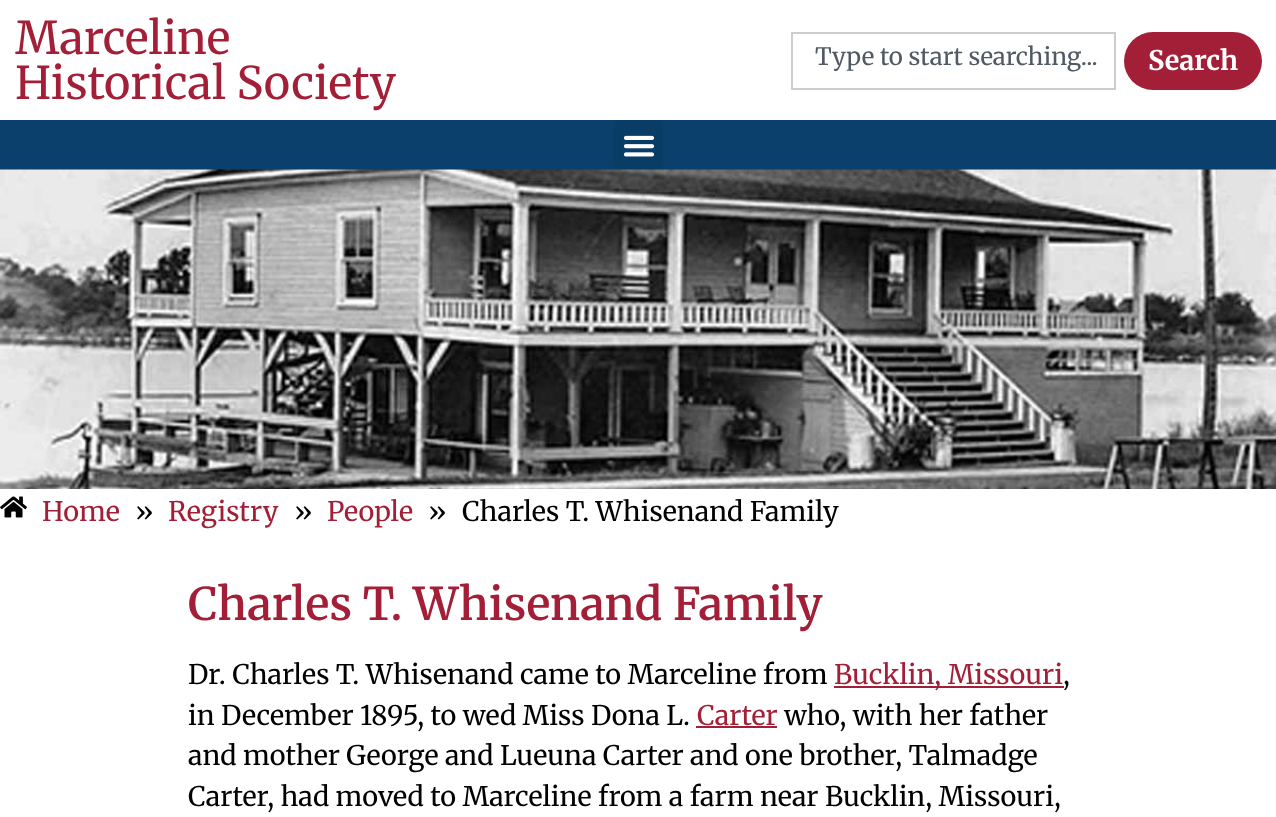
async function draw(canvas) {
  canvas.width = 1276
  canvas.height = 817
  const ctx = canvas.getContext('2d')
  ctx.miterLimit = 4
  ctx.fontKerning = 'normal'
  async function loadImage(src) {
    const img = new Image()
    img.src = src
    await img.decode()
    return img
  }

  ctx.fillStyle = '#fff'
  ctx.fillRect(0, 0, 1276, 817)
  ctx.font = '45px Merriweather'
  ctx.fillStyle = '#a31f37'
  ctx.fillText('Marceline', 15, 54)
  ctx.fillText('Historical Society', 15, 99)
  ctx.strokeStyle = '#cdcdcd'
  ctx.lineWidth = 2
  ctx.strokeRect(792, 33, 323, 56)
  ctx.font = '24px Merriweather'
  ctx.fillStyle = '#515962'
  ctx.fillText('Type to start searching...', 815, 65)
  ctx.fillStyle = '#a31f37'
  ctx.beginPath()
  ctx.roundRect(1124, 32, 138, 58, 29)
  ctx.fill()
  ctx.font = 'bold 27px Merriweather'
  ctx.fillStyle = '#fff'
  ctx.fillText('Search', 1148, 70)
  ctx.fillStyle = '#0a406b'
  ctx.fillRect(0, 120, 1276, 50)
  ctx.fillStyle = '#0a3d66'
  ctx.beginPath()
  ctx.roundRect(614, 120, 49, 50, 5)
  ctx.fill()
  ctx.drawImage(await loadImage('image0.png'), 623, 135, 32, 22)
  ctx.drawImage(await loadImage('image1.png'), 0, 169, 1276, 320)
  ctx.drawImage(await loadImage('image2.png'), 0, 496, 27, 22)
  ctx.font = '27px Merriweather'
  ctx.fillStyle = '#a31f37'
  ctx.fillText('Home', 42, 521)
  ctx.fillStyle = '#000'
  ctx.fillText('»', 135, 521)
  ctx.fillStyle = '#a31f37'
  ctx.fillText('Registry', 168, 521)
  ctx.fillStyle = '#000'
  ctx.fillText('»', 294, 521)
  ctx.fillStyle = '#a31f37'
  ctx.fillText('People', 327, 521)
  ctx.fillStyle = '#000'
  ctx.fillText('»', 428, 521)
  ctx.fillText('Charles T. Whisenand Family', 462, 521)
  ctx.font = '600 45px Merriweather'
  ctx.fillStyle = '#a31f37'
  ctx.fillText('Charles T. Whisenand Family', 188, 620)
  ctx.font = '27px Merriweather'
  ctx.fillStyle = '#000'
  ctx.fillText('Dr. Charles T. Whisenand came to Marceline from', 188, 684)
  ctx.fillStyle = '#a31f37'
  ctx.fillRect(834, 686, 230, 2)
  ctx.fillText('Bucklin, Missouri', 834, 684)
  ctx.fillStyle = '#000'
  ctx.fillText(',', 1063, 684)
  ctx.fillText('in December 1895, to wed Miss Dona L.', 188, 725)
  ctx.fillStyle = '#a31f37'
  ctx.fillText('Carter', 697, 725)
  ctx.fillRect(696, 726, 81, 2)
  ctx.fillStyle = '#000'
  ctx.fillText('who, with her father', 784, 725)
  ctx.fillText('and mother George and Lueuna Carter and one brother, Talmadge', 188, 765)
  ctx.fillText('Carter, had moved to Marceline from a farm near Bucklin, Missouri,', 188, 806)
}

draw(document.querySelector('canvas'))
